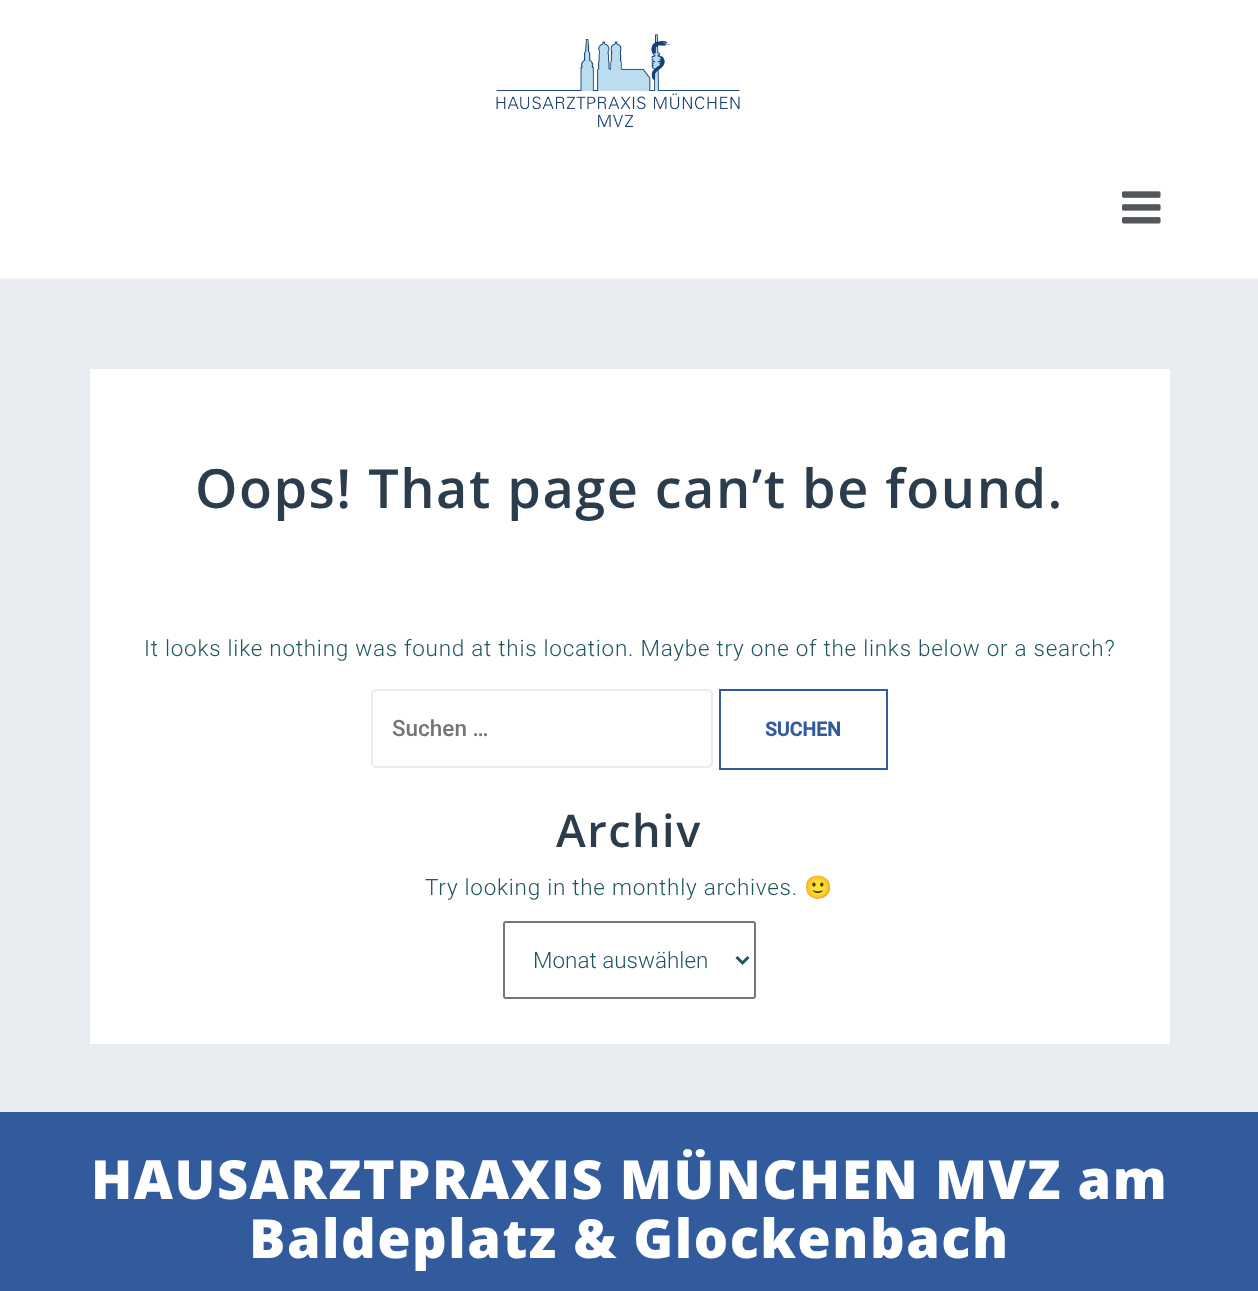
async function draw(canvas) {
  canvas.width = 1258
  canvas.height = 1291
  const ctx = canvas.getContext('2d')
  ctx.miterLimit = 4
  ctx.fontKerning = 'normal'
  async function loadImage(src) {
    const img = new Image()
    img.src = src
    await img.decode()
    return img
  }

  ctx.fillStyle = '#e8ecf0'
  ctx.fillRect(0, 0, 1258, 1291)
  ctx.fillStyle = '#fff'
  ctx.fillRect(0, 0, 1258, 278)
  ctx.fillStyle = '#f0f0f0'
  ctx.fillRect(0, 278, 1258, 2)
  ctx.drawImage(await loadImage('image0.png'), 496, 34, 244, 94)
  ctx.drawImage(await loadImage('image1.png'), 1122, 191, 39, 33)
  ctx.fillStyle = '#fff'
  ctx.fillRect(90, 369, 1080, 675)
  ctx.letterSpacing = '1.5px'
  ctx.font = '600 54px Open Sans'
  ctx.fillStyle = '#2b3c4d'
  ctx.fillText('Oops! That page can’t be found.', 195, 508)
  ctx.letterSpacing = '0.75px'
  ctx.font = '300 22.5px Roboto'
  ctx.fillStyle = '#1f5660'
  ctx.fillText('It looks like nothing was found at this location. Maybe try one of the links below or a search?', 144, 656)
  ctx.beginPath()
  ctx.roundRect(372, 690, 340, 77, 4)
  ctx.strokeStyle = '#ebebeb'
  ctx.lineWidth = 2
  ctx.stroke()
  ctx.letterSpacing = '0px'
  ctx.font = '500 22.5px Roboto'
  ctx.fillStyle = '#757575'
  ctx.fillText('Suchen …', 392, 736)
  ctx.strokeStyle = '#315b9d'
  ctx.strokeRect(720, 690, 167, 79)
  ctx.font = 'bold 19.5px Roboto'
  ctx.fillStyle = '#315b9d'
  ctx.fillText('SUCHEN', 765, 736)
  ctx.letterSpacing = '1.5px'
  ctx.font = '600 45px Open Sans'
  ctx.fillStyle = '#2b3c4d'
  ctx.fillText('Archiv', 556, 847)
  ctx.letterSpacing = '0.75px'
  ctx.font = '300 22.5px Roboto'
  ctx.fillStyle = '#1f5660'
  ctx.fillText('Try looking in the monthly archives.', 425, 895)
  ctx.font = '22.5px Noto Color Emoji'
  ctx.fillText('🙂', 804, 895)
  ctx.beginPath()
  ctx.roundRect(504, 922, 251, 76, 2)
  ctx.strokeStyle = '#767676'
  ctx.stroke()
  ctx.beginPath()
  ctx.moveTo(736.5, 957)
  ctx.lineTo(742.5, 963)
  ctx.lineTo(748.5, 957)
  ctx.strokeStyle = '#1f5660'
  ctx.lineWidth = 3
  ctx.stroke()
  ctx.letterSpacing = '0px'
  ctx.font = '300 22.5px Roboto'
  ctx.fillText('Monat auswählen', 533, 968)
  ctx.fillStyle = '#315b9d'
  ctx.fillRect(0, 1112, 1258, 179)
  ctx.letterSpacing = '1.5px'
  ctx.font = '800 54px Open Sans'
  ctx.fillStyle = '#fff'
  ctx.fillText('HAUSARZTPRAXIS MÜNCHEN MVZ am', 91, 1199)
  ctx.fillText('Baldeplatz & Glockenbach', 249, 1258)
}

draw(document.querySelector('canvas'))
